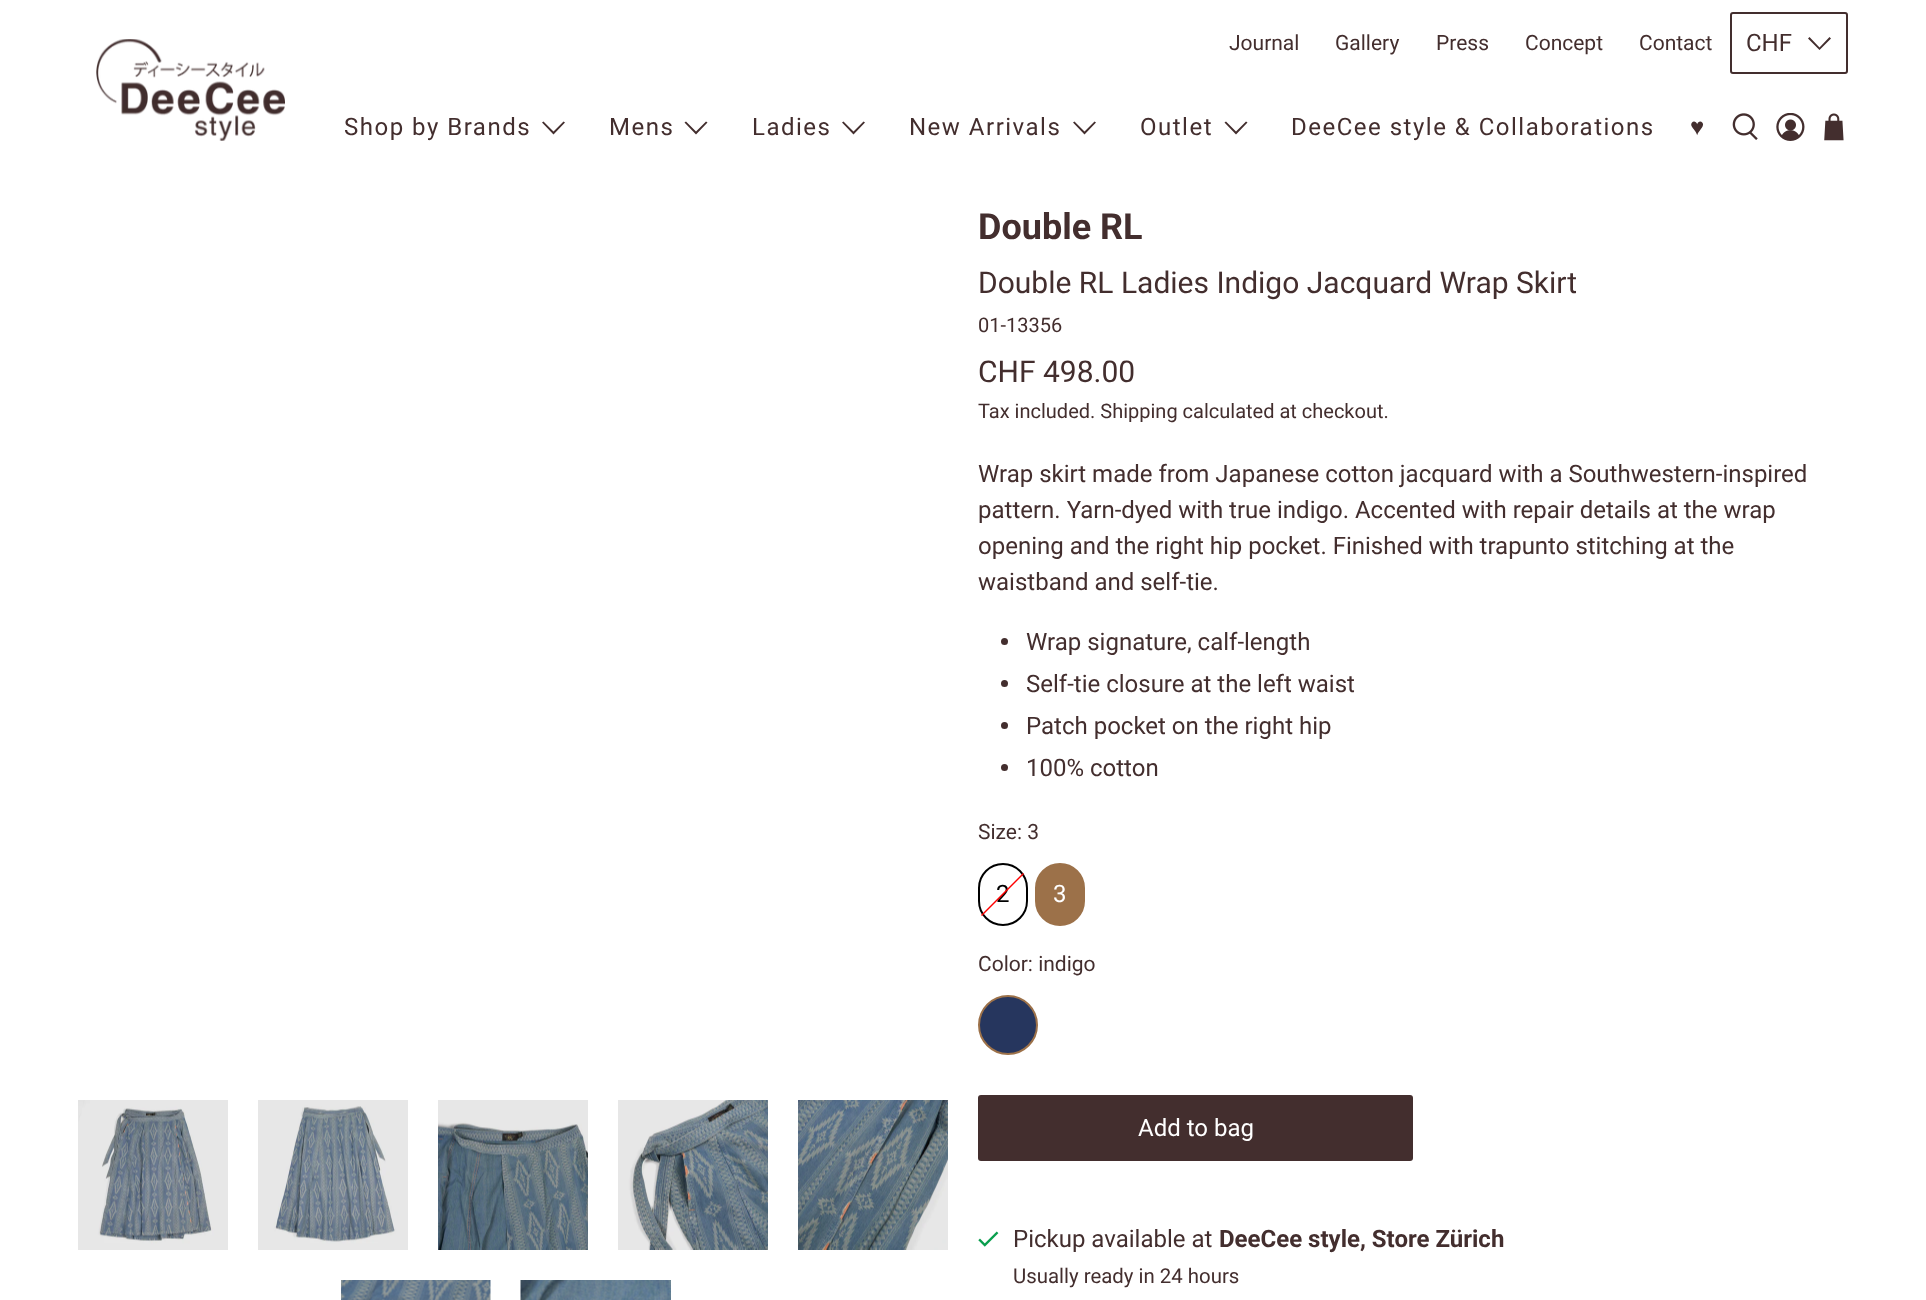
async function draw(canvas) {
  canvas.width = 1926
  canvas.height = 1300
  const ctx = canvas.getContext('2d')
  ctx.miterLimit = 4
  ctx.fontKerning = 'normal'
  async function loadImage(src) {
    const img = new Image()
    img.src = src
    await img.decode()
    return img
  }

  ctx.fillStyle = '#fff'
  ctx.fillRect(0, 0, 1926, 1300)
  ctx.font = '21px Roboto'
  ctx.fillStyle = '#432e2e'
  ctx.fillText('Journal', 1229, 50)
  ctx.fillText('Gallery', 1335, 50)
  ctx.fillText('Press', 1436, 50)
  ctx.fillText('Concept', 1525, 50)
  ctx.fillText('Contact', 1639, 50)
  ctx.beginPath()
  ctx.roundRect(1731, 13, 116, 60, 2)
  ctx.strokeStyle = '#432e2e'
  ctx.lineWidth = 2
  ctx.stroke()
  ctx.font = '24px Roboto'
  ctx.fillText('CHF', 1746, 51)
  ctx.beginPath()
  ctx.moveTo(1819.5, 50)
  ctx.lineTo(1808, 38.5)
  ctx.lineTo(1809.5, 37)
  ctx.lineTo(1819.5, 47.5)
  ctx.lineTo(1829.5, 37)
  ctx.lineTo(1831, 38.5)
  ctx.closePath()
  ctx.fill()
  ctx.drawImage(await loadImage('image0.png'), 96, 39, 189, 102)
  ctx.letterSpacing = '1.5px'
  ctx.fillText('Shop by Brands', 344, 135)
  ctx.beginPath()
  ctx.moveTo(553.5, 134.5)
  ctx.lineTo(542, 122.5)
  ctx.lineTo(543.5, 121.5)
  ctx.lineTo(553.5, 131.5)
  ctx.lineTo(563.5, 121.5)
  ctx.lineTo(565, 122.5)
  ctx.closePath()
  ctx.fill()
  ctx.fillText('Mens', 609, 135)
  ctx.beginPath()
  ctx.moveTo(696, 134.5)
  ctx.lineTo(684.5, 122.5)
  ctx.lineTo(686, 121.5)
  ctx.lineTo(696, 131.5)
  ctx.lineTo(706, 121.5)
  ctx.lineTo(707.5, 122.5)
  ctx.closePath()
  ctx.fill()
  ctx.fillText('Ladies', 752, 135)
  ctx.beginPath()
  ctx.moveTo(853.5, 134.5)
  ctx.lineTo(842, 122.5)
  ctx.lineTo(843.5, 121.5)
  ctx.lineTo(853.5, 131.5)
  ctx.lineTo(863.5, 121.5)
  ctx.lineTo(865, 122.5)
  ctx.closePath()
  ctx.fill()
  ctx.fillText('New Arrivals', 909, 135)
  ctx.beginPath()
  ctx.moveTo(1084.5, 134.5)
  ctx.lineTo(1073, 122.5)
  ctx.lineTo(1074.5, 121.5)
  ctx.lineTo(1084.5, 131.5)
  ctx.lineTo(1094.5, 121.5)
  ctx.lineTo(1096, 122.5)
  ctx.closePath()
  ctx.fill()
  ctx.fillText('Outlet', 1140, 135)
  ctx.beginPath()
  ctx.moveTo(1236, 134.5)
  ctx.lineTo(1224.5, 122.5)
  ctx.lineTo(1226, 121.5)
  ctx.lineTo(1236, 131.5)
  ctx.lineTo(1246, 121.5)
  ctx.lineTo(1247.5, 122.5)
  ctx.closePath()
  ctx.fill()
  ctx.fillText('DeeCee style & Collaborations', 1291, 135)
  ctx.font = '24px Liberation Sans'
  ctx.fillText('♥︎', 1690, 135)
  ctx.drawImage(await loadImage('image1.png'), 1732, 113, 26, 27)
  ctx.drawImage(await loadImage('image2.png'), 1776, 113, 29, 28)
  ctx.drawImage(await loadImage('image3.png'), 1824, 113, 20, 28)
  ctx.drawImage(await loadImage('image4.png'), 78, 1100, 150, 150)
  ctx.drawImage(await loadImage('image5.png'), 258, 1100, 150, 150)
  ctx.drawImage(await loadImage('image6.png'), 438, 1100, 150, 150)
  ctx.drawImage(await loadImage('image7.png'), 618, 1100, 150, 150)
  ctx.drawImage(await loadImage('image8.png'), 798, 1100, 150, 150)
  ctx.drawImage(await loadImage('image9.png'), 341, 1280, 150, 20)
  ctx.drawImage(await loadImage('image10.png'), 520, 1280, 151, 20)
  ctx.letterSpacing = '0px'
  ctx.font = 'bold 36px Roboto'
  ctx.fillText('Double RL', 978, 239)
  ctx.font = '30px Roboto'
  ctx.fillText('Double RL Ladies Indigo Jacquard Wrap Skirt', 978, 293)
  ctx.font = '20px Roboto'
  ctx.fillText('01-13356', 978, 332)
  ctx.font = '30px Roboto'
  ctx.fillText('CHF 498.00', 978, 382)
  ctx.font = '20px Roboto'
  ctx.fillText('Tax included. Shipping calculated at checkout.', 978, 418)
  ctx.font = '24px Roboto'
  ctx.fillText('Wrap skirt made from Japanese cotton jacquard with a Southwestern-inspired', 978, 482)
  ctx.fillText('pattern. Yarn-dyed with true indigo. Accented with repair details at the wrap', 978, 518)
  ctx.fillText('opening and the right hip pocket. Finished with trapunto stitching at the', 978, 554)
  ctx.fillText('waistband and self-tie.', 978, 590)
  ctx.beginPath()
  ctx.arc(1004.5, 641.5, 3.5, 0, 2 * Math.PI)
  ctx.fill()
  ctx.fillText('Wrap signature, calf-length', 1026, 650)
  ctx.beginPath()
  ctx.arc(1004.5, 683.5, 3.5, 0, 2 * Math.PI)
  ctx.fill()
  ctx.fillText('Self-tie closure at the left waist', 1026, 692)
  ctx.beginPath()
  ctx.arc(1004.5, 725.5, 3.5, 0, 2 * Math.PI)
  ctx.fill()
  ctx.fillText('Patch pocket on the right hip', 1026, 734)
  ctx.beginPath()
  ctx.arc(1004.5, 767.5, 3.5, 0, 2 * Math.PI)
  ctx.fill()
  ctx.fillText('100% cotton', 1026, 776)
  ctx.font = '21px Roboto'
  ctx.fillText('Size: 3', 978, 839)
  ctx.beginPath()
  ctx.roundRect(979, 864, 48, 61, 24)
  ctx.strokeStyle = '#000'
  ctx.stroke()
  ctx.font = '24px Roboto'
  ctx.fillStyle = '#000'
  ctx.fillText('2', 996, 902)
  ctx.fillStyle = '#f00'
  ctx.beginPath()
  ctx.moveTo(1023, 873)
  ctx.lineTo(1024, 874)
  ctx.lineTo(982, 916)
  ctx.lineTo(981, 915)
  ctx.closePath()
  ctx.fill()
  ctx.fillStyle = '#9c7149'
  ctx.beginPath()
  ctx.roundRect(1036, 864, 48, 61, 24)
  ctx.fill()
  ctx.strokeStyle = '#9c7149'
  ctx.stroke()
  ctx.fillStyle = '#fff'
  ctx.fillText('3', 1053, 902)
  ctx.font = '21px Roboto'
  ctx.fillStyle = '#432e2e'
  ctx.fillText('Color: indigo', 978, 971)
  ctx.fillStyle = '#26365e'
  ctx.beginPath()
  ctx.arc(1008, 1025, 29, 0, 2 * Math.PI)
  ctx.fill()
  ctx.stroke()
  ctx.fillStyle = '#432e2e'
  ctx.beginPath()
  ctx.roundRect(978, 1095, 435, 66, 3)
  ctx.fill()
  ctx.font = '24px Roboto'
  ctx.fillStyle = '#fff'
  ctx.fillText('Add to bag', 1138, 1136)
  ctx.drawImage(await loadImage('image11.png'), 978, 1231, 21, 16)
  ctx.fillStyle = '#432e2e'
  ctx.fillText('Pickup available at', 1013, 1247)
  ctx.font = 'bold 24px Roboto'
  ctx.fillText('DeeCee style, Store Zürich', 1219, 1247)
  ctx.font = '20.4px Roboto'
  ctx.fillText('Usually ready in 24 hours', 1013, 1283)
}

draw(document.querySelector('canvas'))
